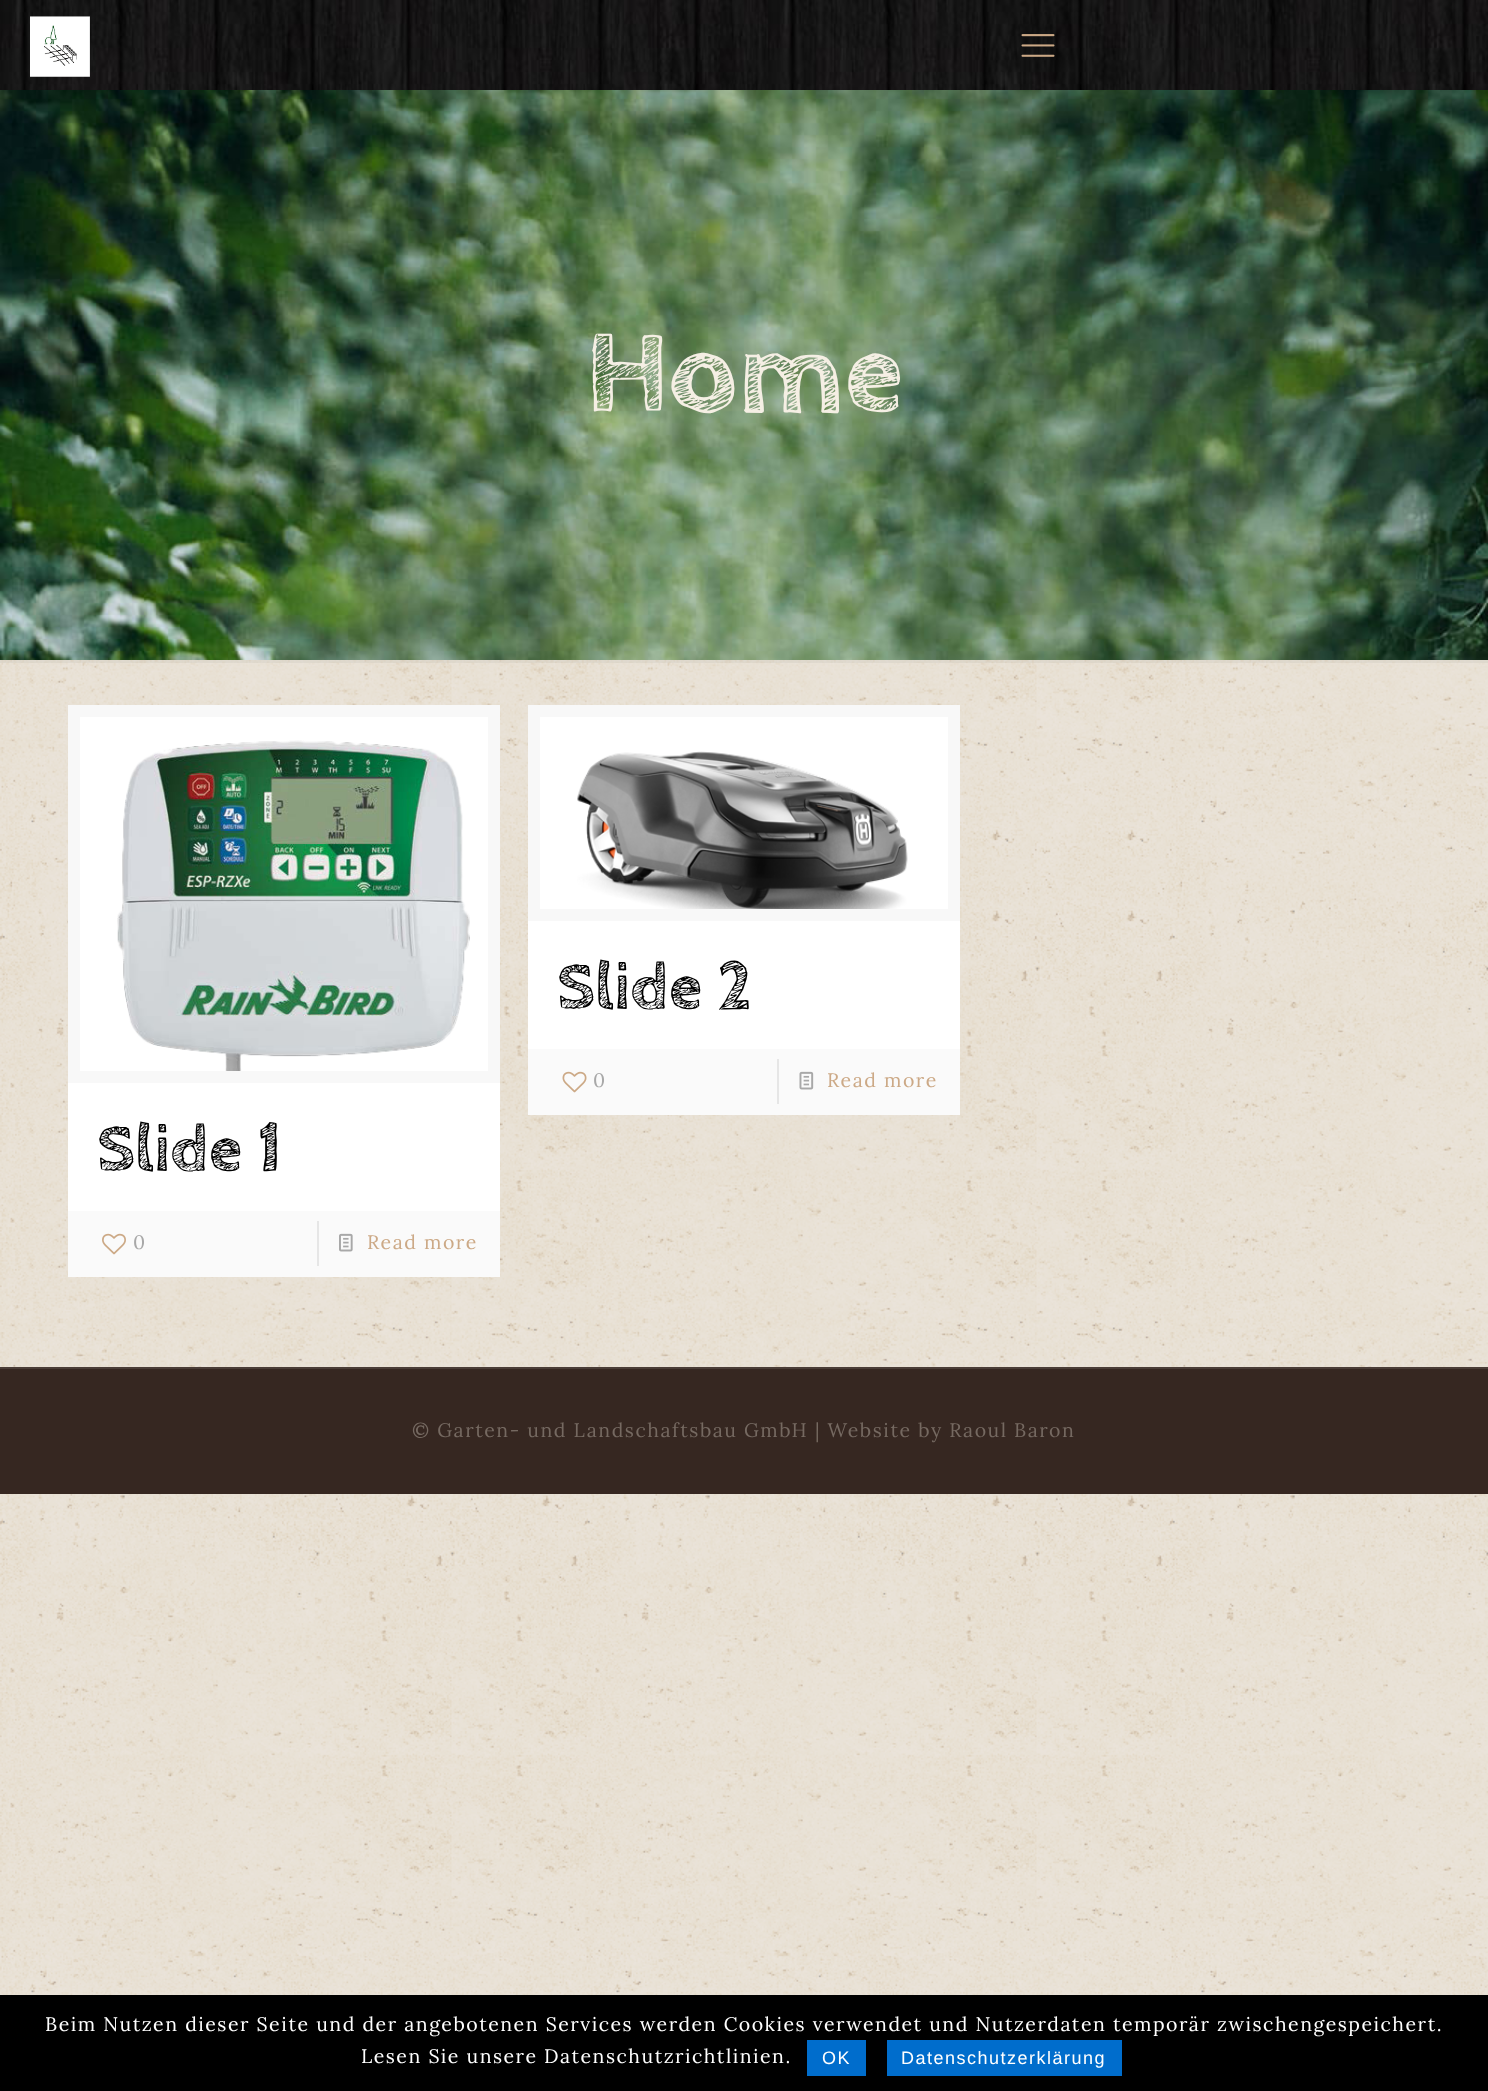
async function draw(canvas) {
  canvas.width = 1488
  canvas.height = 2091
  const ctx = canvas.getContext('2d')
  ctx.miterLimit = 4
  ctx.fontKerning = 'normal'
  async function loadImage(src) {
    const img = new Image()
    img.src = src
    await img.decode()
    return img
  }

  ctx.fillStyle = '#fff'
  ctx.fillRect(0, 0, 1488, 2091)
  ctx.drawImage(await loadImage('image0.png'), 0, 660, 1488, 1335)
  ctx.drawImage(await loadImage('image1.png'), 0, 0, 1488, 90)
  ctx.drawImage(await loadImage('image2.png'), 30, 16, 60, 61)
  ctx.drawImage(await loadImage('image3.png'), 1021, 34, 34, 23)
  ctx.drawImage(await loadImage('image4.png'), 0, 90, 1488, 570)
  ctx.font = 'bold 120px Cabin Sketch'
  ctx.fillStyle = '#f5efe4'
  ctx.fillText('Home', 585, 410)
  ctx.fillStyle = '#0000000a'
  ctx.fillRect(0, 660, 1488, 3)
  ctx.fillStyle = '#fff'
  ctx.fillRect(528, 717, 432, 332)
  ctx.strokeStyle = '#f8f8f8'
  ctx.lineWidth = 12
  ctx.strokeRect(534, 711, 420, 204)
  ctx.drawImage(await loadImage('image5.png'), 577, 751, 331, 158)
  ctx.font = 'bold 67.5px Cabin Sketch'
  ctx.fillStyle = '#000'
  ctx.fillText('Slide 2', 557, 1008)
  ctx.fillStyle = '#fafafa'
  ctx.fillRect(528, 1049, 432, 66)
  ctx.drawImage(await loadImage('image6.png'), 562, 1071, 25, 22)
  ctx.letterSpacing = '1.5px'
  ctx.font = '19.5px Lora'
  ctx.fillStyle = '#a8a8a8'
  ctx.fillText('0', 593, 1087)
  ctx.fillStyle = '#e6e6e6'
  ctx.fillRect(777, 1059, 2, 45)
  ctx.drawImage(await loadImage('image7.png'), 799, 1071, 15, 19)
  ctx.fillStyle = '#cca986'
  ctx.fillText('Read more', 827, 1087)
  ctx.fillStyle = '#fff'
  ctx.fillRect(68, 717, 432, 494)
  ctx.strokeRect(74, 711, 420, 366)
  ctx.drawImage(await loadImage('image8.png'), 117, 740, 353, 331)
  ctx.letterSpacing = '0px'
  ctx.font = 'bold 67.5px Cabin Sketch'
  ctx.fillStyle = '#000'
  ctx.fillText('Slide 1', 97, 1170)
  ctx.fillStyle = '#fafafa'
  ctx.fillRect(68, 1211, 432, 66)
  ctx.drawImage(await loadImage('image9.png'), 102, 1233, 24, 22)
  ctx.letterSpacing = '1.5px'
  ctx.font = '19.5px Lora'
  ctx.fillStyle = '#a8a8a8'
  ctx.fillText('0', 133, 1249)
  ctx.fillStyle = '#e6e6e6'
  ctx.fillRect(317, 1221, 2, 45)
  ctx.drawImage(await loadImage('image10.png'), 339, 1233, 14, 19)
  ctx.fillStyle = '#cca986'
  ctx.fillText('Read more', 367, 1249)
  ctx.fillStyle = '#362721'
  ctx.fillRect(0, 1369, 1488, 125)
  ctx.fillStyle = '#4a3d37'
  ctx.fillRect(0, 1367, 1488, 2)
  ctx.fillStyle = '#756961'
  ctx.fillText('© Garten- und Landschaftsbau GmbH | Website by Raoul Baron', 412, 1437)
  ctx.fillStyle = '#000'
  ctx.fillRect(0, 1995, 1488, 96)
  ctx.fillStyle = '#fff'
  ctx.fillText('Beim Nutzen dieser Seite und der angebotenen Services werden Cookies verwendet und Nutzerdaten temporär zwischengespeichert.', 45, 2031)
  ctx.fillText('Lesen Sie unsere Datenschutzrichtlinien.', 361, 2063)
  ctx.fillStyle = '#006dcc'
  ctx.fillRect(807, 2040, 59, 36)
  ctx.font = '18px Liberation Sans'
  ctx.fillStyle = '#fff'
  ctx.fillText('OK', 822, 2064)
  ctx.fillStyle = '#006dcc'
  ctx.fillRect(887, 2040, 235, 36)
  ctx.fillStyle = '#fff'
  ctx.fillText('Datenschutzerklärung', 901, 2064)
}

draw(document.querySelector('canvas'))
